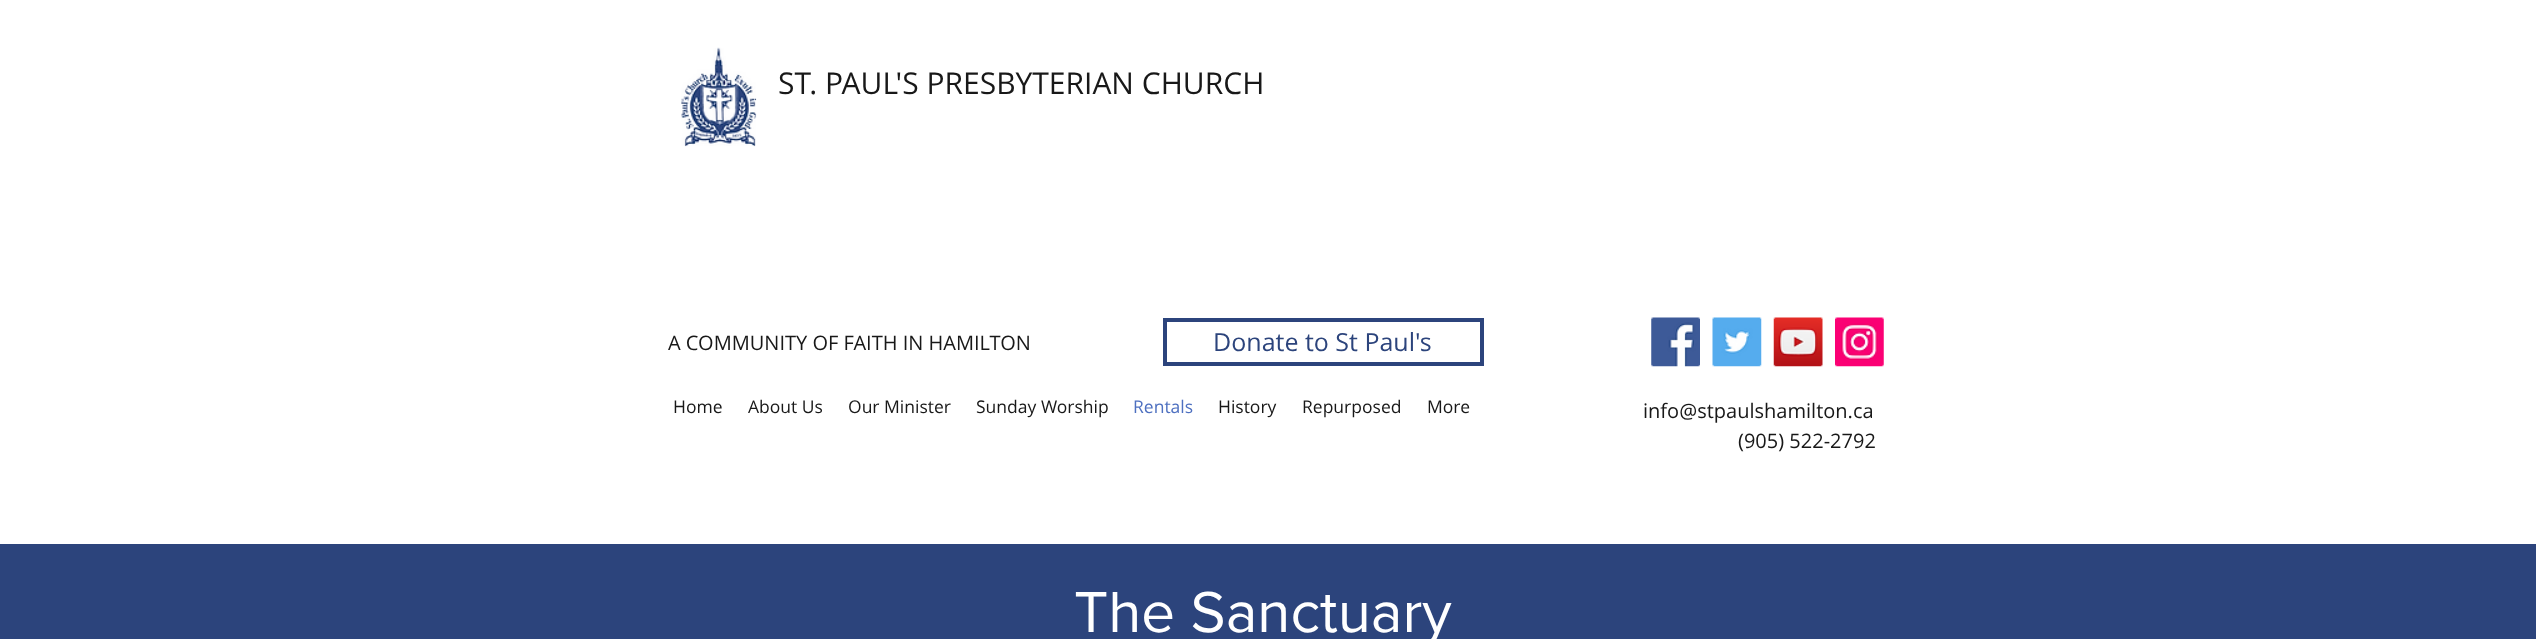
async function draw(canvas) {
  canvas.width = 2536
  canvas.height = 639
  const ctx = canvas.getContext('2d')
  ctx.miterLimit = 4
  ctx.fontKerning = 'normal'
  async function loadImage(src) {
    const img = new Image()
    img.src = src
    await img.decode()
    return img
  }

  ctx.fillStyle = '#2c447c'
  ctx.fillRect(0, 0, 2536, 639)
  ctx.fillStyle = '#fff'
  ctx.fillRect(0, 0, 2536, 544)
  ctx.drawImage(await loadImage('image0.png'), 681, 47, 76, 100)
  ctx.font = '30px Open Sans'
  ctx.fillStyle = '#181818'
  ctx.fillText('ST. PAUL\'S PRESBYTERIAN CHURCH', 778, 94)
  ctx.font = '20px Open Sans'
  ctx.fillText('A COMMUNITY OF FAITH IN HAMILTON', 668, 350)
  ctx.strokeStyle = '#2c447c'
  ctx.lineWidth = 4
  ctx.strokeRect(1165, 320, 317, 44)
  ctx.font = '25px Open Sans'
  ctx.fillStyle = '#2c447c'
  ctx.fillText('Donate to St Paul\'s', 1213, 351)
  ctx.drawImage(await loadImage('image1.png'), 1651, 317, 49, 50)
  ctx.drawImage(await loadImage('image2.png'), 1712, 317, 50, 50)
  ctx.drawImage(await loadImage('image3.png'), 1773, 317, 50, 50)
  ctx.drawImage(await loadImage('image4.png'), 1835, 317, 49, 50)
  ctx.font = '17.5px Open Sans'
  ctx.fillStyle = '#181818'
  ctx.fillText('Home', 673, 413)
  ctx.fillText('About Us', 748, 413)
  ctx.fillText('Our Minister', 848, 413)
  ctx.fillText('Sunday Worship', 976, 413)
  ctx.fillStyle = '#4e70c0'
  ctx.fillText('Rentals', 1133, 413)
  ctx.fillStyle = '#181818'
  ctx.fillText('History', 1218, 413)
  ctx.fillText('Repurposed', 1302, 413)
  ctx.fillText('More', 1427, 413)
  ctx.font = '20px Open Sans'
  ctx.fillText('info@stpaulshamilton.ca', 1643, 418)
  ctx.fillText('(905) 522-2792', 1738, 448)
  ctx.font = '60px "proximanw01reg"'
  ctx.fillStyle = '#fff'
  ctx.fillText('The Sanctuary', 1074, 632)
}

draw(document.querySelector('canvas'))
